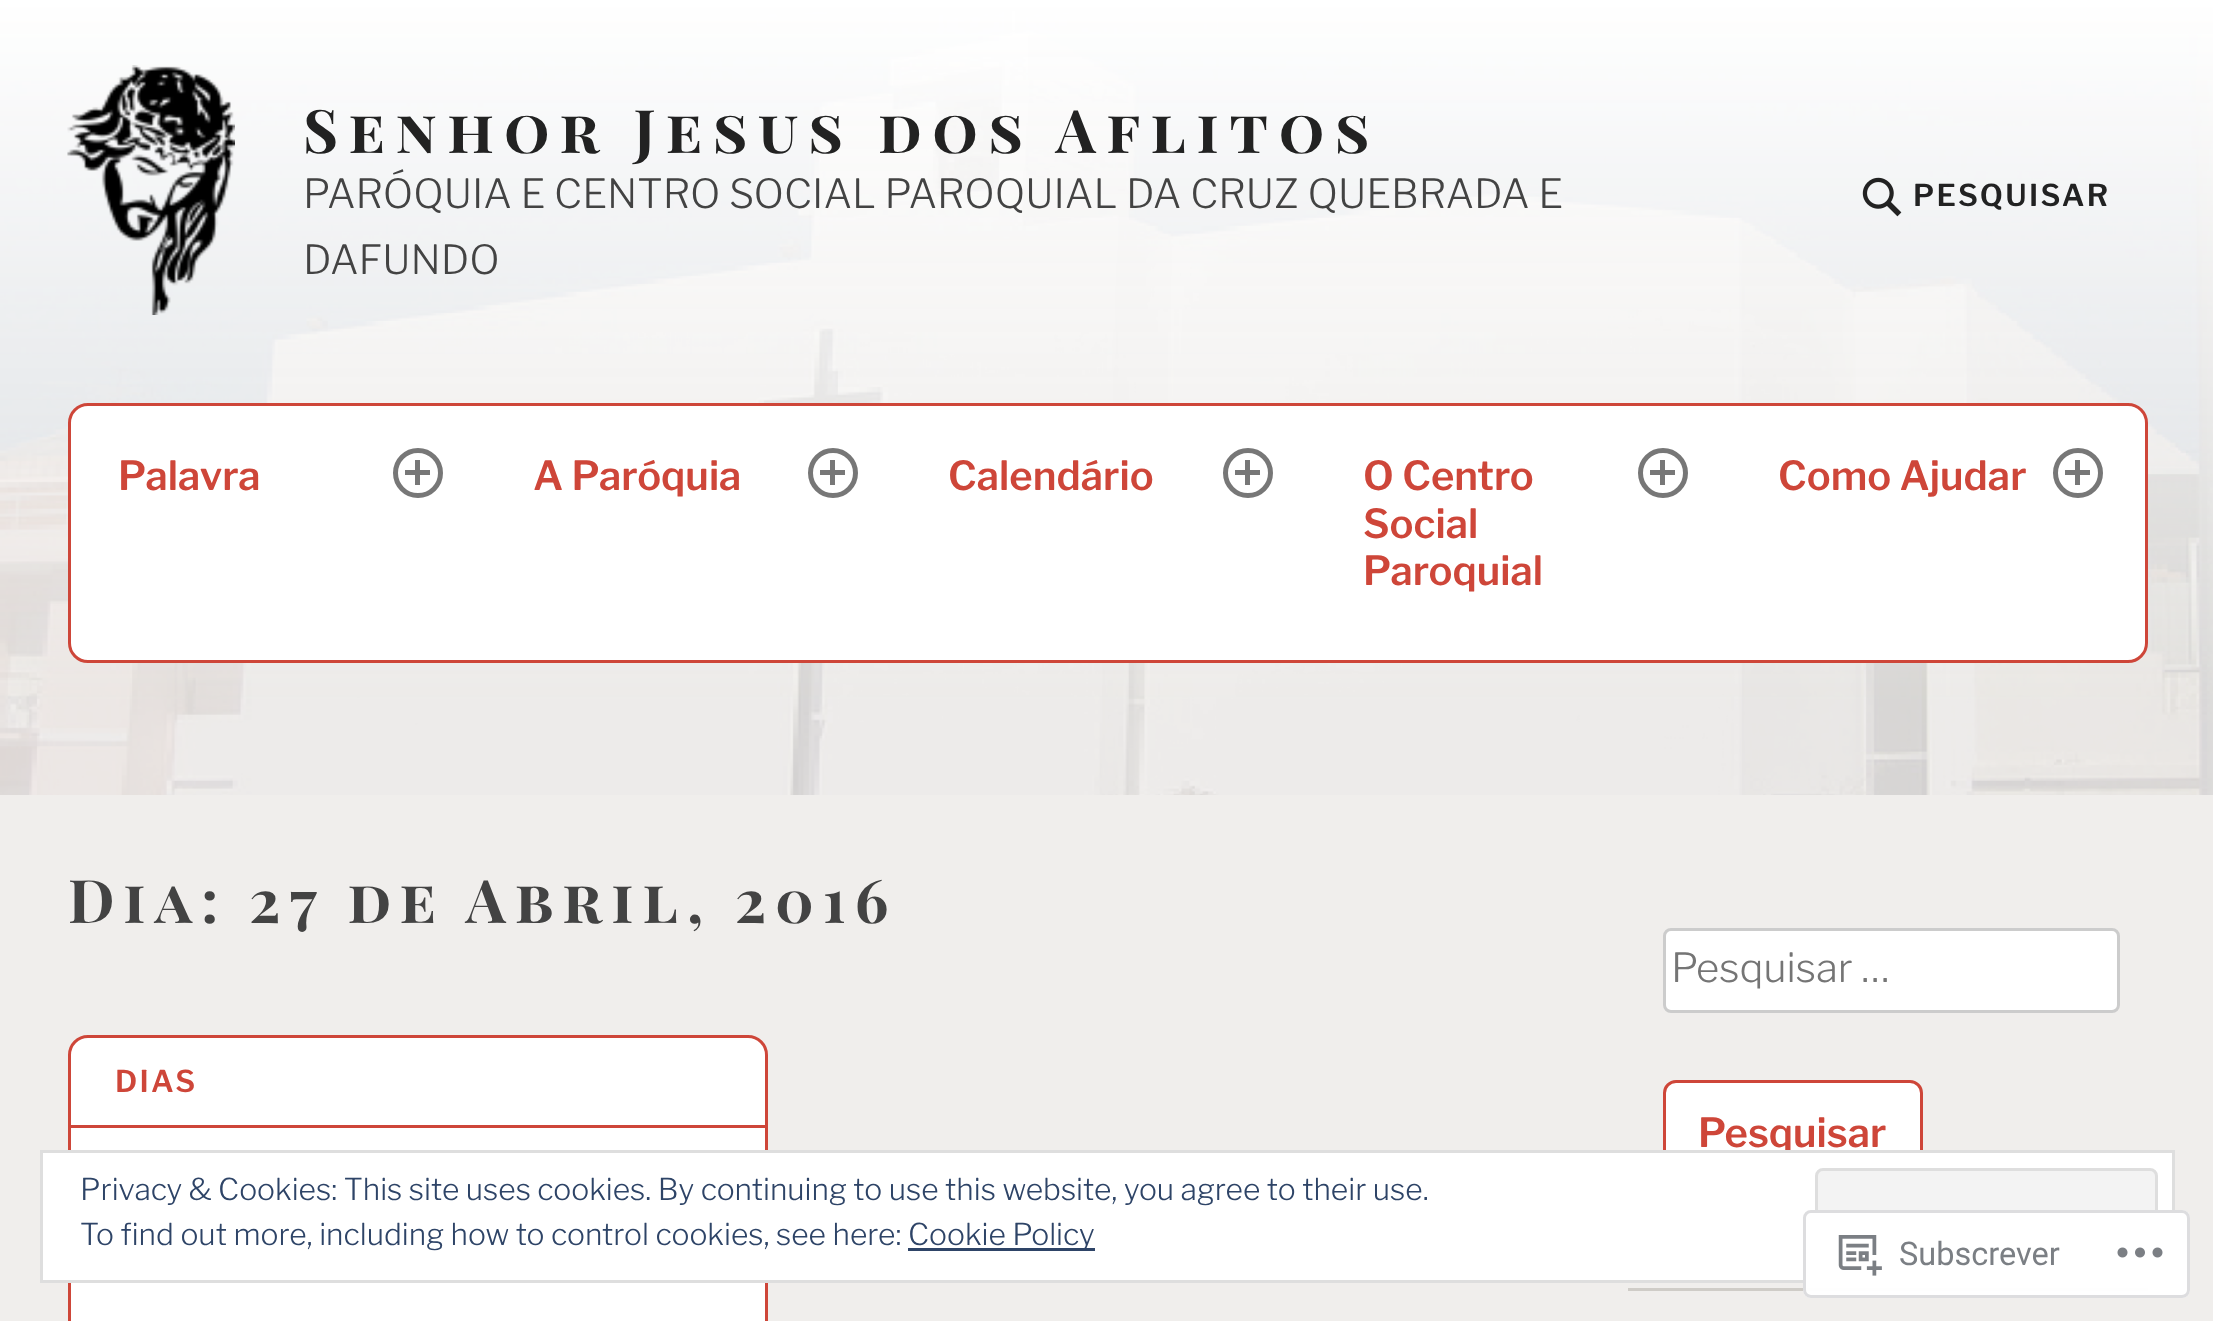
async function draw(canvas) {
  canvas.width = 2213
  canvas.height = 1321
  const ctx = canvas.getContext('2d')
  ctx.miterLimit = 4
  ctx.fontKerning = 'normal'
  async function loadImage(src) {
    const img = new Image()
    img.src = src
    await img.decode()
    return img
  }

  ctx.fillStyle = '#f0eeec'
  ctx.fillRect(0, 0, 2213, 1321)
  ctx.drawImage(await loadImage('image0.png'), 0, 0, 2213, 795)
  ctx.drawImage(await loadImage('image1.png'), 67, 65, 168, 250)
  ctx.letterSpacing = '10.5px'
  ctx.font = 'bold 60px Playfair Display SC'
  ctx.fillStyle = '#222'
  ctx.fillText('Senhor Jesus dos Aflitos', 303, 153)
  ctx.letterSpacing = '0px'
  ctx.font = '300 40px Libre Franklin'
  ctx.fillStyle = '#434343'
  ctx.fillText('PARÓQUIA E CENTRO SOCIAL PAROQUIAL DA CRUZ QUEBRADA E', 303, 208)
  ctx.fillText('DAFUNDO', 303, 274)
  ctx.drawImage(await loadImage('image2.png'), 1862, 177, 40, 40)
  ctx.letterSpacing = '2.25px'
  ctx.font = '600 30px Libre Franklin'
  ctx.fillStyle = '#222'
  ctx.fillText('PESQUISAR', 1913, 206)
  ctx.fillStyle = '#fff'
  ctx.beginPath()
  ctx.roundRect(69.5, 404.5, 2077, 257, 18.5)
  ctx.fill()
  ctx.strokeStyle = '#ce4639'
  ctx.lineWidth = 3
  ctx.stroke()
  ctx.letterSpacing = '0px'
  ctx.font = '600 40px Libre Franklin'
  ctx.fillStyle = '#ce4639'
  ctx.fillText('Palavra', 118, 490)
  ctx.beginPath()
  ctx.arc(418, 473, 22.5, 0, 2 * Math.PI)
  ctx.strokeStyle = '#777'
  ctx.lineWidth = 5
  ctx.stroke()
  ctx.drawImage(await loadImage('image3.png'), 405, 460, 25, 25)
  ctx.fillText('A Paróquia', 533, 490)
  ctx.beginPath()
  ctx.arc(833, 473, 22.5, 0, 2 * Math.PI)
  ctx.stroke()
  ctx.drawImage(await loadImage('image3.png'), 820, 460, 25, 25)
  ctx.fillText('Calendário', 948, 490)
  ctx.beginPath()
  ctx.arc(1248, 473, 22.5, 0, 2 * Math.PI)
  ctx.stroke()
  ctx.drawImage(await loadImage('image3.png'), 1235, 460, 25, 25)
  ctx.fillText('O Centro', 1363, 490)
  ctx.fillText('Social', 1363, 538)
  ctx.fillText('Paroquial', 1363, 585)
  ctx.beginPath()
  ctx.arc(1663, 473, 22.5, 0, 2 * Math.PI)
  ctx.stroke()
  ctx.drawImage(await loadImage('image3.png'), 1650, 460, 25, 25)
  ctx.fillText('Como Ajudar', 1778, 490)
  ctx.beginPath()
  ctx.arc(2078, 473, 22.5, 0, 2 * Math.PI)
  ctx.stroke()
  ctx.drawImage(await loadImage('image3.png'), 2065, 460, 25, 25)
  ctx.letterSpacing = '9px'
  ctx.font = 'bold 60px Playfair Display SC'
  ctx.fillStyle = '#434343'
  ctx.fillText('Dia:', 68, 923)
  ctx.fillText('27 de Abril, 2016', 249, 923)
  ctx.fillStyle = '#fff'
  ctx.beginPath()
  ctx.roundRect(69.5, 1036.5, 697, 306, 18.5)
  ctx.fill()
  ctx.strokeStyle = '#ce4639'
  ctx.lineWidth = 3
  ctx.stroke()
  ctx.letterSpacing = '2.25px'
  ctx.font = '600 30px Libre Franklin'
  ctx.fillStyle = '#ce4639'
  ctx.fillText('DIAS', 115, 1092)
  ctx.fillRect(70, 1125, 695, 3)
  ctx.fillStyle = '#fff'
  ctx.beginPath()
  ctx.roundRect(1664.5, 929.5, 454, 82, 6.5)
  ctx.fill()
  ctx.strokeStyle = '#ccc'
  ctx.stroke()
  ctx.letterSpacing = '0px'
  ctx.font = '300 40px Libre Franklin'
  ctx.fillStyle = '#757575'
  ctx.fillText('Pesquisar …', 1671, 982)
  ctx.fillStyle = '#fff'
  ctx.beginPath()
  ctx.roundRect(1664.5, 1081.5, 257, 107, 11.5)
  ctx.fill()
  ctx.strokeStyle = '#ce4639'
  ctx.stroke()
  ctx.font = '600 40px Libre Franklin'
  ctx.fillStyle = '#ce4639'
  ctx.fillText('Pesquisar', 1698, 1147)
  ctx.fillStyle = '#cfccc7'
  ctx.fillRect(1628, 1288, 520, 3)
  ctx.fillStyle = '#fff'
  ctx.beginPath()
  ctx.rect(41.5, 1151.5, 2132, 130)
  ctx.fill()
  ctx.strokeStyle = '#dedede'
  ctx.stroke()
  ctx.font = '300 30px Libre Franklin'
  ctx.fillStyle = '#2e4467'
  ctx.fillText('Privacy & Cookies: This site uses cookies. By continuing to use this website, you agree to their use.', 80, 1200)
  ctx.fillStyle = '#f3f3f3'
  ctx.beginPath()
  ctx.roundRect(1816.5, 1169.5, 340, 94, 6.5)
  ctx.fill()
  ctx.stroke()
  ctx.fillStyle = '#2e4467'
  ctx.fillText('To find out more, including how to control cookies, see here:', 80, 1245)
  ctx.fillRect(908, 1248, 187, 3)
  ctx.fillText('Cookie Policy', 908, 1245)
  ctx.fillStyle = '#fffffffa'
  ctx.beginPath()
  ctx.roundRect(1803, 1210, 387, 88, 8)
  ctx.fill()
  ctx.beginPath()
  ctx.roundRect(1804.5, 1211.5, 384, 85, 6.5)
  ctx.strokeStyle = '#dcdcdefa'
  ctx.stroke()
  ctx.drawImage(await loadImage('image4.png'), 1838, 1235, 44, 41)
  ctx.font = '32.5px Roboto'
  ctx.fillStyle = '#7b7f84'
  ctx.fillText('Subscrever', 1899, 1265)
  ctx.drawImage(await loadImage('image5.png'), 2117, 1247, 46, 11)
}

draw(document.querySelector('canvas'))
